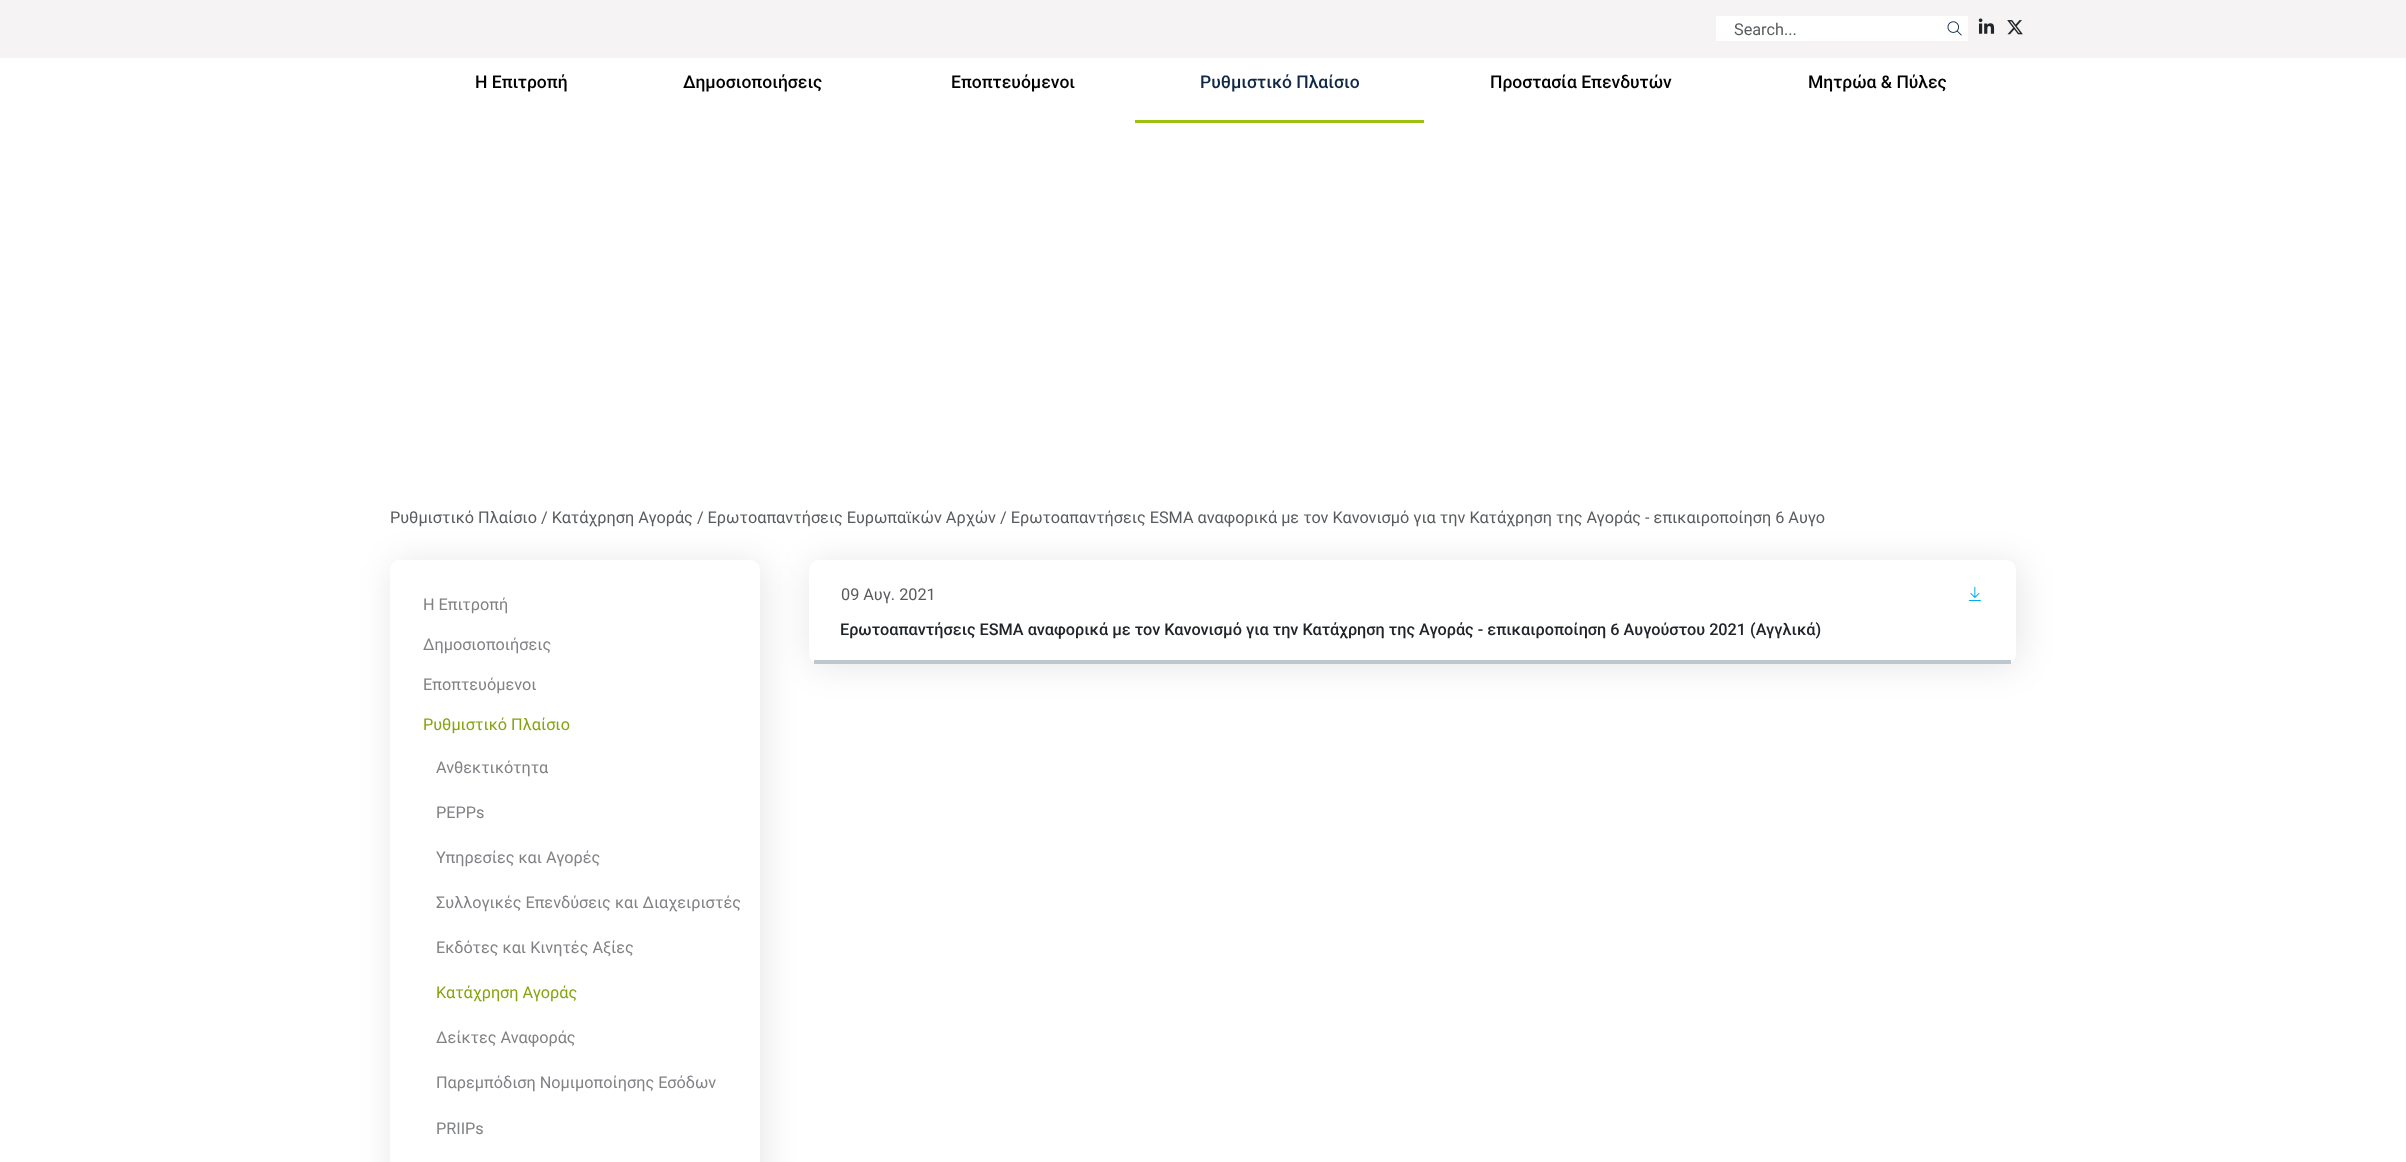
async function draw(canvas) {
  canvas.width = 2406
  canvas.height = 1162
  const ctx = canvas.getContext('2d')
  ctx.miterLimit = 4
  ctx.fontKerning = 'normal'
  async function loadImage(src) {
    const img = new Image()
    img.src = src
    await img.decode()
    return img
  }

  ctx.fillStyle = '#fff'
  ctx.fillRect(0, 0, 2406, 1162)
  ctx.fillStyle = '#f5f3f3'
  ctx.fillRect(0, 0, 2406, 58)
  ctx.fillStyle = '#fff'
  ctx.fillRect(1716, 16, 252, 25)
  ctx.font = '16.25px Roboto'
  ctx.fillStyle = '#595c5f'
  ctx.fillText('Search...', 1734, 35)
  ctx.drawImage(await loadImage('image0.png'), 1947, 21, 15, 15)
  ctx.drawImage(await loadImage('image1.png'), 1978, 18, 17, 16)
  ctx.drawImage(await loadImage('image2.png'), 2007, 20, 16, 15)
  ctx.font = '500 17.5px Roboto'
  ctx.fillStyle = '#000'
  ctx.fillText('Η Επιτροπή', 475, 88)
  ctx.fillText('Δημοσιοποιήσεις', 683, 88)
  ctx.fillText('Εποπτευόμενοι', 951, 88)
  ctx.fillStyle = '#9dc10d'
  ctx.fillRect(1135, 120, 289, 3)
  ctx.fillStyle = '#112747'
  ctx.fillText('Ρυθμιστικό Πλαίσιο', 1200, 88)
  ctx.fillStyle = '#000'
  ctx.fillText('Προστασία Επενδυτών', 1490, 88)
  ctx.fillText('Μητρώα & Πύλες', 1808, 88)
  ctx.font = '16.25px Roboto'
  ctx.fillStyle = '#595c5f'
  ctx.fillText('Ρυθμιστικό Πλαίσιο / Κατάχρηση Αγοράς / Ερωτoαπαντήσεις Ευρωπαϊκών Αρχών / Ερωτοαπαντήσεις ESMA αναφορικά με τον Κανονισμό για την Κατάχρηση της Αγοράς - επικαιροποίηση 6 Αυγο', 390, 523)
  ctx.save()
  ctx.beginPath()
  ctx.moveTo(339, 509)
  ctx.lineTo(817, 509)
  ctx.lineTo(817, 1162)
  ctx.lineTo(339, 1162)
  ctx.closePath()
  ctx.moveTo(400, 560)
  ctx.lineTo(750, 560)
  ctx.bezierCurveTo(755.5, 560, 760, 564.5, 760, 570)
  ctx.lineTo(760, 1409)
  ctx.bezierCurveTo(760, 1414.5, 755.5, 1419, 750, 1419)
  ctx.lineTo(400, 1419)
  ctx.bezierCurveTo(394.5, 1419, 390, 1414.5, 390, 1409)
  ctx.lineTo(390, 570)
  ctx.bezierCurveTo(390, 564.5, 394.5, 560, 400, 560)
  ctx.closePath()
  ctx.clip('evenodd')
  ctx.fillStyle = '#0000001a'
  ctx.filter = 'blur(17.5px)'
  ctx.beginPath()
  ctx.roundRect(393, 563, 370, 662, 10)
  ctx.fill()
  ctx.filter = 'none'
  ctx.restore()
  ctx.fillStyle = '#808285'
  ctx.fillText('Η Επιτροπή', 423, 610)
  ctx.fillText('Δημοσιοποιήσεις', 423, 650)
  ctx.fillText('Εποπτευόμενοι', 423, 690)
  ctx.fillStyle = '#86a40e'
  ctx.fillText('Ρυθμιστικό Πλαίσιο', 423, 730)
  ctx.fillStyle = '#808285'
  ctx.fillText('Ανθεκτικότητα', 436, 773)
  ctx.fillText('PEPPs', 436, 818)
  ctx.fillText('Υπηρεσίες και Αγορές', 436, 863)
  ctx.fillText('Συλλογικές Επενδύσεις και Διαχειριστές', 436, 908)
  ctx.fillText('Εκδότες και Κινητές Αξίες', 436, 953)
  ctx.fillStyle = '#86a40e'
  ctx.fillText('Κατάχρηση Αγοράς', 436, 998)
  ctx.fillStyle = '#808285'
  ctx.fillText('Δείκτες Αναφοράς', 436, 1043)
  ctx.fillText('Παρεμπόδιση Νομιμοποίησης Εσόδων', 436, 1088)
  ctx.fillText('PRIIPs', 436, 1134)
  ctx.fillStyle = '#0000001a'
  ctx.filter = 'blur(17.5px)'
  ctx.beginPath()
  ctx.roundRect(811, 563, 1208, 103, 10)
  ctx.fill()
  ctx.filter = 'none'
  ctx.fillStyle = '#fff'
  ctx.beginPath()
  ctx.roundRect(809, 560, 1207, 104, 10)
  ctx.fill()
  ctx.fillStyle = '#bec7d0'
  ctx.fillRect(814, 660, 1197, 4)
  ctx.fillStyle = '#595c5f'
  ctx.fillText('09 Αυγ. 2021', 841, 600)
  ctx.drawImage(await loadImage('image3.png'), 1968, 586, 13, 15)
  ctx.font = '500 16.25px Roboto'
  ctx.fillStyle = '#212529'
  ctx.fillText('Ερωτοαπαντήσεις ESMA αναφορικά με τον Κανονισμό για την Κατάχρηση της Αγοράς - επικαιροποίηση 6 Αυγούστου 2021 (Αγγλικά)', 840, 635)
}

draw(document.querySelector('canvas'))
